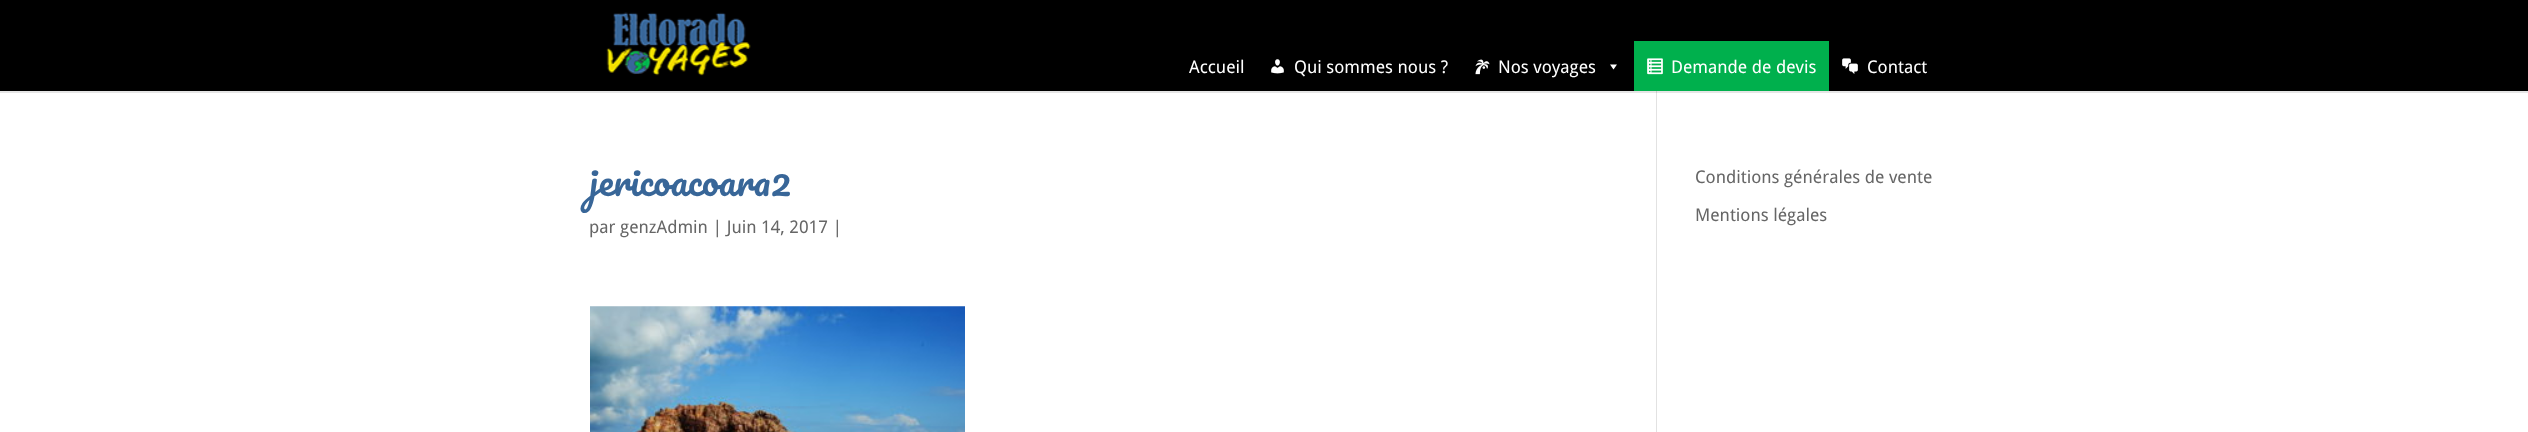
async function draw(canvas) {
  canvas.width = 2528
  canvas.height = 432
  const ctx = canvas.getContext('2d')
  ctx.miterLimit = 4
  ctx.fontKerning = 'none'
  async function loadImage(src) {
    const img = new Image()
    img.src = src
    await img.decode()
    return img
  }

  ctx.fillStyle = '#fff'
  ctx.fillRect(0, 0, 2528, 432)
  ctx.fillStyle = '#e2e2e2'
  ctx.fillRect(1656, 90, 1, 342)
  ctx.fillStyle = '#0000001a'
  ctx.beginPath()
  ctx.moveTo(0, 91)
  ctx.lineTo(0, 93)
  ctx.lineTo(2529, 93)
  ctx.lineTo(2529, 1)
  ctx.lineTo(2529, 91)
  ctx.closePath()
  ctx.fill()
  ctx.fillStyle = '#000'
  ctx.fillRect(0, 0, 2528, 91)
  ctx.drawImage(await loadImage('image0.png'), 606, 12, 145, 64)
  ctx.font = '17.5px Droid Sans'
  ctx.fillStyle = '#fff'
  ctx.fillText('Accueil', 1189, 73)
  ctx.drawImage(await loadImage('image1.png'), 1271, 59, 13, 15)
  ctx.fillText('Qui sommes nous ?', 1294, 73)
  ctx.drawImage(await loadImage('image2.png'), 1475, 59, 15, 16)
  ctx.fillText('Nos voyages', 1498, 73)
  ctx.beginPath()
  ctx.moveTo(1617, 64.5)
  ctx.lineTo(1613.5, 69.5)
  ctx.lineTo(1610, 64.5)
  ctx.closePath()
  ctx.fill()
  ctx.fillStyle = '#00b04d'
  ctx.fillRect(1634, 41, 195, 50)
  ctx.drawImage(await loadImage('image3.png'), 1647, 58, 16, 17)
  ctx.fillStyle = '#fff'
  ctx.fillText('Demande de devis', 1671, 73)
  ctx.drawImage(await loadImage('image4.png'), 1842, 58, 16, 16)
  ctx.fillText('Contact', 1867, 73)
  ctx.font = '37.5px Pacifico'
  ctx.fillStyle = '#386698'
  ctx.fillText('jericoacoara2', 589, 196)
  ctx.font = '17.5px Droid Sans'
  ctx.fillStyle = '#666'
  ctx.fillText('par genzAdmin | Juin 14, 2017 |', 589, 233)
  ctx.drawImage(await loadImage('image5.png'), 590, 306, 375, 126)
  ctx.fillText('Conditions générales de vente', 1695, 183)
  ctx.fillText('Mentions légales', 1695, 221)
}

draw(document.querySelector('canvas'))
